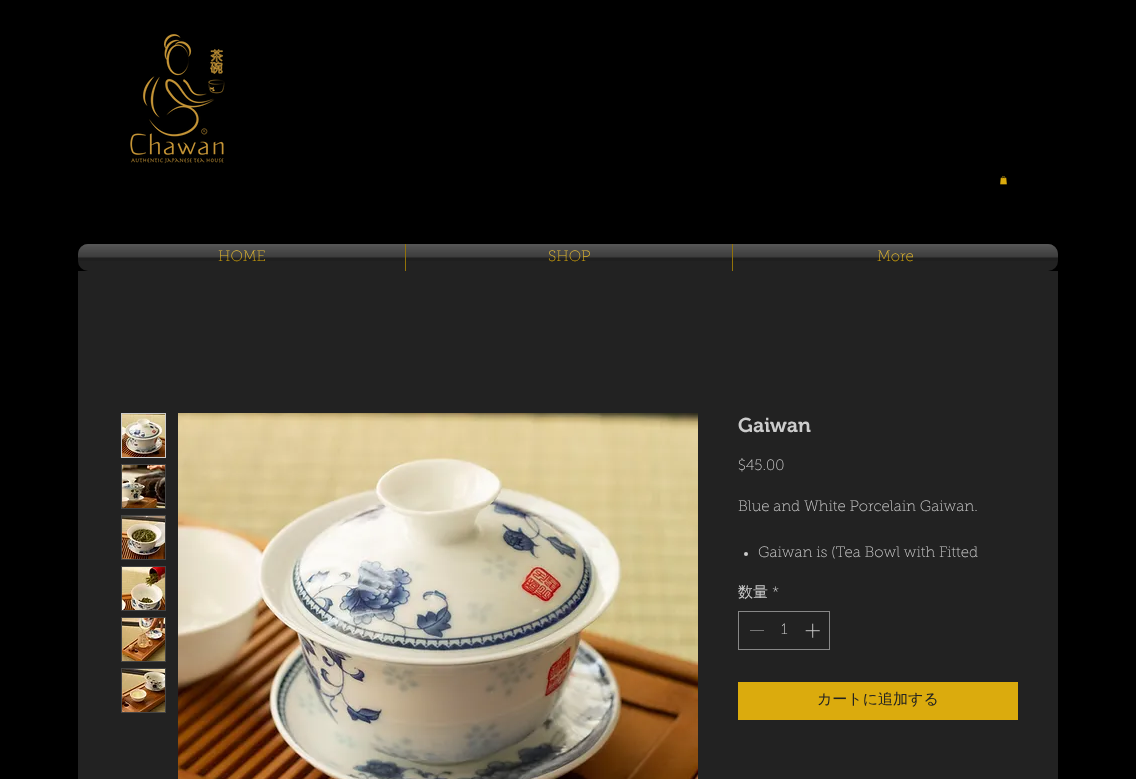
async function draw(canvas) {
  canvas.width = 1136
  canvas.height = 779
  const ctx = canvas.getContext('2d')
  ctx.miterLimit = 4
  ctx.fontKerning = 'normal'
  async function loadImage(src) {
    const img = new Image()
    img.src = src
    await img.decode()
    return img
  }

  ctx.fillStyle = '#000'
  ctx.fillRect(0, 0, 1136, 779)
  ctx.drawImage(await loadImage('image0.png'), 130, 34, 95, 130)
  ctx.drawImage(await loadImage('image1.png'), 1000, 176, 7, 9)
  ctx.drawImage(await loadImage('image2.png'), 78, 244, 980, 10)
  ctx.fillStyle = '#222'
  ctx.beginPath()
  ctx.roundRect(78, 244, 327, 27, [10, 0, 0, 10])
  ctx.fill()
  ctx.font = '100 15px "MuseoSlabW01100"'
  ctx.fillStyle = '#dbab0d'
  ctx.fillText('HOME', 218, 261)
  ctx.drawImage(await loadImage('image3.png'), 78, 244, 327, 17)
  ctx.fillStyle = '#222'
  ctx.fillRect(406, 244, 326, 27)
  ctx.fillStyle = '#927209'
  ctx.fillRect(405, 244, 1, 27)
  ctx.fillStyle = '#dbab0d'
  ctx.fillText('SHOP', 548, 261)
  ctx.drawImage(await loadImage('image4.png'), 406, 244, 326, 17)
  ctx.fillStyle = '#222'
  ctx.beginPath()
  ctx.roundRect(732, 244, 326, 27, [0, 10, 10, 0])
  ctx.fill()
  ctx.fillStyle = '#927209'
  ctx.fillRect(732, 244, 1, 27)
  ctx.fillStyle = '#dbab0d'
  ctx.fillText('More', 877, 261)
  ctx.drawImage(await loadImage('image5.png'), 733, 244, 325, 17)
  ctx.fillStyle = '#222'
  ctx.fillRect(78, 271, 980, 508)
  ctx.strokeStyle = '#ccc'
  ctx.strokeRect(121.5, 413.5, 44, 44)
  ctx.drawImage(await loadImage('image6.png'), 122, 414, 43, 43)
  ctx.fillStyle = '#444'
  ctx.fillRect(121, 464, 45, 45)
  ctx.drawImage(await loadImage('image7.png'), 122, 465, 43, 43)
  ctx.fillRect(121, 515, 45, 45)
  ctx.drawImage(await loadImage('image8.png'), 122, 516, 43, 43)
  ctx.fillRect(121, 566, 45, 45)
  ctx.drawImage(await loadImage('image9.png'), 122, 567, 43, 43)
  ctx.fillRect(121, 617, 45, 45)
  ctx.drawImage(await loadImage('image10.png'), 122, 618, 43, 43)
  ctx.fillRect(121, 668, 45, 45)
  ctx.drawImage(await loadImage('image11.png'), 122, 669, 43, 43)
  ctx.drawImage(await loadImage('image12.png'), 178, 413, 520, 366)
  ctx.font = '600 20px "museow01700"'
  ctx.fillStyle = '#ccc'
  ctx.fillText('Gaiwan', 738, 432)
  ctx.font = '100 15px "MuseoSlabW01100"'
  ctx.fillText('$45.00', 738, 470)
  ctx.fillText('Blue and White Porcelain Gaiwan.', 738, 511)
  ctx.beginPath()
  ctx.arc(746, 554, 2, 0, 2 * Math.PI)
  ctx.fill()
  ctx.fillText('Gaiwan is (Tea Bowl with Fitted', 758, 557)
  ctx.font = '500 15px WenQuanYi Zen Hei'
  ctx.fillText('数量', 738, 597)
  ctx.font = '100 15px "MuseoSlabW01100"'
  ctx.fillText('*', 772, 597)
  ctx.strokeStyle = '#888'
  ctx.strokeRect(738.5, 611.5, 91, 38)
  ctx.fillStyle = '#757575'
  ctx.fillRect(750, 630, 14, 1)
  ctx.fillStyle = '#ccc'
  ctx.fillText('1', 781, 634)
  ctx.drawImage(await loadImage('image13.png'), 805, 623, 15, 15)
  ctx.fillStyle = '#dbab0d'
  ctx.fillRect(738, 682, 280, 38)
  ctx.font = '500 15px WenQuanYi Zen Hei'
  ctx.fillStyle = '#222'
  ctx.fillText('カートに追加する', 817, 704)
}

draw(document.querySelector('canvas'))
